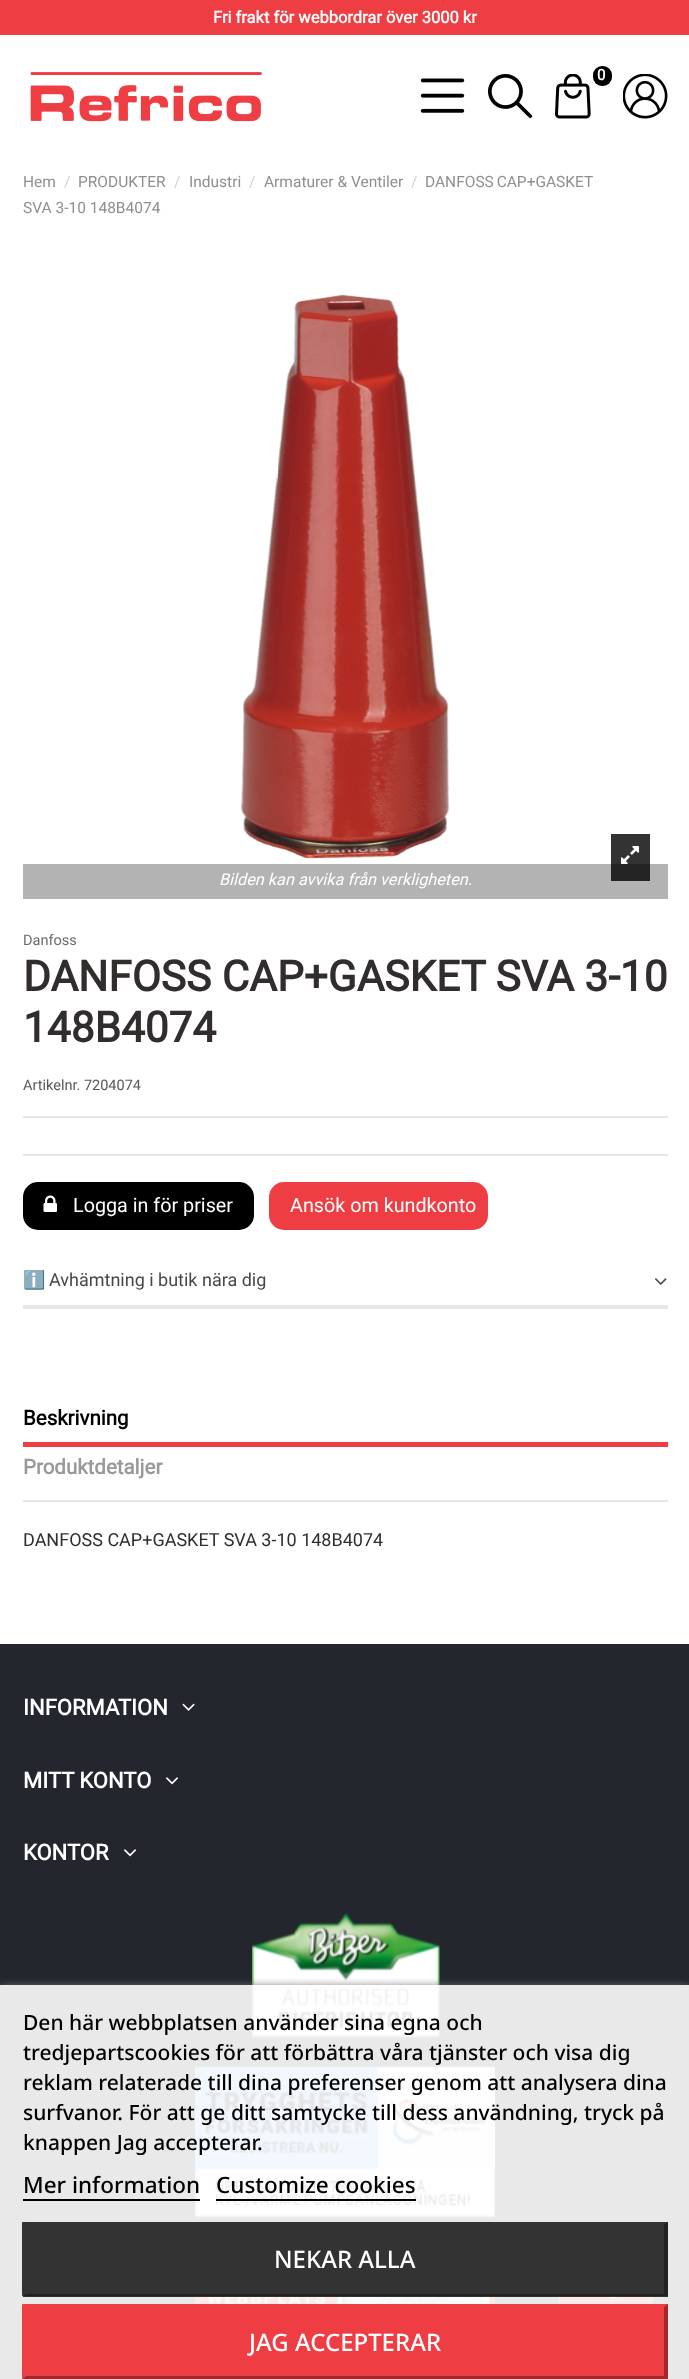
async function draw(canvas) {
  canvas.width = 689
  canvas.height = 2379
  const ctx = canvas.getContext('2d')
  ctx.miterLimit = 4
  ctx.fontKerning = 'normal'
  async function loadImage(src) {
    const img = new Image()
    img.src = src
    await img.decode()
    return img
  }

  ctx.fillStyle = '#fff'
  ctx.fillRect(0, 0, 689, 2379)
  ctx.fillStyle = '#b3b3b3'
  ctx.fillRect(23, 864, 645, 35)
  ctx.fillStyle = '#ef3e43'
  ctx.fillRect(0, 0, 689, 35)
  ctx.font = 'bold 16.5px Roboto'
  ctx.fillStyle = '#fff'
  ctx.fillText('Fri frakt för webbordrar över 3000 kr', 213, 23)
  ctx.drawImage(await loadImage('image0.png'), 30, 72, 232, 50)
  ctx.drawImage(await loadImage('image1.png'), 420, 78, 45, 35)
  ctx.drawImage(await loadImage('image2.png'), 488, 74, 45, 45)
  ctx.drawImage(await loadImage('image3.png'), 555, 74, 36, 45)
  ctx.fillStyle = '#000'
  ctx.beginPath()
  ctx.roundRect(593, 66, 19, 20, 9)
  ctx.fill()
  ctx.font = 'bold 15px Roboto'
  ctx.fillStyle = '#fff'
  ctx.fillText('0', 597, 80)
  ctx.drawImage(await loadImage('image4.png'), 623, 74, 45, 45)
  ctx.font = '15.5px Roboto'
  ctx.fillStyle = '#8f8f8f'
  ctx.fillText('Hem', 23, 187)
  ctx.fillStyle = '#d2d2d2'
  ctx.fillText('/', 64, 187)
  ctx.fillStyle = '#8f8f8f'
  ctx.fillText('PRODUKTER', 78, 187)
  ctx.fillStyle = '#d2d2d2'
  ctx.fillText('/', 174, 187)
  ctx.fillStyle = '#8f8f8f'
  ctx.fillText('Industri', 189, 187)
  ctx.fillStyle = '#d2d2d2'
  ctx.fillText('/', 249, 187)
  ctx.fillStyle = '#8f8f8f'
  ctx.fillText('Armaturer & Ventiler', 264, 187)
  ctx.fillStyle = '#d2d2d2'
  ctx.fillText('/', 411, 187)
  ctx.wordSpacing = '-1px'
  ctx.fillStyle = '#8f8f8f'
  ctx.fillText('DANFOSS CAP+GASKET', 425, 187)
  ctx.wordSpacing = '0px'
  ctx.fillText('SVA 3-10 148B4074', 23, 213)
  ctx.drawImage(await loadImage('image5.png'), 240, 294, 210, 565)
  ctx.fillStyle = '#333'
  ctx.fillRect(611, 834, 39, 30)
  ctx.fillStyle = '#242424'
  ctx.fillRect(611, 864, 39, 17)
  ctx.drawImage(await loadImage('image6.png'), 621, 846, 18, 18)
  ctx.font = 'italic 16.25px Roboto'
  ctx.fillStyle = '#fff'
  ctx.fillText('Bilden kan avvika från verkligheten.', 219, 885)
  ctx.fillStyle = '#e7e7e7'
  ctx.fillRect(23, 1154, 645, 2)
  ctx.font = '14.5px Roboto'
  ctx.fillStyle = '#6c6c6c'
  ctx.fillText('Danfoss', 23, 945)
  ctx.font = 'bold 42.4px Roboto'
  ctx.fillStyle = '#322d2d'
  ctx.fillText('DANFOSS CAP+GASKET SVA 3-10', 23, 991)
  ctx.fillText('148B4074', 23, 1042)
  ctx.font = '14.5px Roboto'
  ctx.fillStyle = '#5b5757'
  ctx.fillText('Artikelnr. 7204074', 23, 1090)
  ctx.fillStyle = '#e7e7e7'
  ctx.fillRect(23, 1116, 645, 2)
  ctx.fillStyle = '#000'
  ctx.beginPath()
  ctx.roundRect(24, 1183, 229, 46, 14)
  ctx.fill()
  ctx.strokeStyle = '#000'
  ctx.lineWidth = 2
  ctx.stroke()
  ctx.drawImage(await loadImage('image7.png'), 43, 1195, 14, 17)
  ctx.font = '19.75px Roboto'
  ctx.fillStyle = '#fff'
  ctx.fillText('Logga in för priser', 73, 1212)
  ctx.fillStyle = '#ef3e43'
  ctx.beginPath()
  ctx.roundRect(269, 1182, 219, 48, 15)
  ctx.fill()
  ctx.fillStyle = '#fff'
  ctx.fillText('Ansök om kundkonto', 290, 1212)
  ctx.font = '18px Noto Color Emoji'
  ctx.fillStyle = '#474747'
  ctx.fillText('ℹ️', 23, 1286)
  ctx.font = '18px Roboto'
  ctx.fillText('Avhämtning i butik nära dig', 49, 1286)
  ctx.drawImage(await loadImage('image8.png'), 655, 1278, 12, 7)
  ctx.fillStyle = '#e7e7e7'
  ctx.fillRect(23, 1305, 645, 4)
  ctx.fillRect(23, 1500, 645, 2)
  ctx.fillStyle = '#ef3e43'
  ctx.fillRect(23, 1442, 645, 5)
  ctx.font = 'bold 20.5px Roboto'
  ctx.fillStyle = '#000'
  ctx.fillText('Beskrivning', 23, 1425)
  ctx.fillStyle = '#999'
  ctx.fillText('Produktdetaljer', 23, 1474)
  ctx.font = '18px Roboto'
  ctx.fillStyle = '#322d2d'
  ctx.fillText('DANFOSS CAP+GASKET SVA 3-10 148B4074', 23, 1546)
  ctx.fillStyle = '#23262c'
  ctx.fillRect(0, 1644, 689, 735)
  ctx.font = 'bold 22px Roboto'
  ctx.fillStyle = '#fff'
  ctx.fillText('INFORMATION', 23, 1715)
  ctx.drawImage(await loadImage('image9.png'), 182, 1703, 13, 8)
  ctx.fillText('MITT KONTO', 23, 1788)
  ctx.drawImage(await loadImage('image10.png'), 166, 1777, 13, 8)
  ctx.fillText('KONTOR', 23, 1860)
  ctx.drawImage(await loadImage('image10.png'), 124, 1849, 13, 8)
  ctx.drawImage(await loadImage('image11.png'), 252, 1913, 188, 125)
  ctx.drawImage(await loadImage('image12.png'), 195, 2066, 300, 152)
  ctx.drawImage(await loadImage('image13.png'), 195, 2297, 300, 7)
  ctx.fillStyle = '#464646'
  ctx.filter = 'blur(6.5px)'
  ctx.beginPath()
  ctx.roundRect(561, 2250, 95, 95, 47.5)
  ctx.fill()
  ctx.filter = 'none'
  ctx.fillStyle = '#ef3e43'
  ctx.beginPath()
  ctx.arc(605.5, 2294.5, 47.5, 0, 2 * Math.PI)
  ctx.fill()
  ctx.drawImage(await loadImage('image14.png'), 608, 2297, 10, 2)
  ctx.save()
  ctx.beginPath()
  ctx.rect(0, 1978, 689, 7)
  ctx.clip()
  ctx.fillStyle = '#707070'
  ctx.filter = 'blur(4px)'
  ctx.beginPath()
  ctx.rect(0, 1986, 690, 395)
  ctx.fill()
  ctx.filter = 'none'
  ctx.restore()
  ctx.fillStyle = '#ffffffe6'
  ctx.fillRect(0, 1985, 689, 394)
  ctx.font = '500 21px Noto Sans'
  ctx.fillStyle = '#000'
  ctx.fillText('Den här webbplatsen använder sina egna och', 23, 2030)
  ctx.fillText('tredjepartscookies för att förbättra våra tjänster och visa dig', 23, 2060)
  ctx.fillText('reklam relaterade till dina preferenser genom att analysera dina', 23, 2090)
  ctx.fillText('surfvanor. För att ge ditt samtycke till dess användning, tryck på', 23, 2120)
  ctx.fillText('knappen Jag accepterar.', 23, 2150)
  ctx.font = '500 22.5px Noto Sans'
  ctx.fillText('Mer information', 23, 2193)
  ctx.fillRect(23, 2199, 177, 2)
  ctx.fillText('Customize cookies', 216, 2193)
  ctx.fillRect(216, 2199, 200, 2)
  ctx.fillStyle = '#333'
  ctx.fillRect(23, 2222, 645, 75)
  ctx.beginPath()
  ctx.moveTo(22, 2222)
  ctx.lineTo(668, 2222)
  ctx.lineTo(664, 2224)
  ctx.lineTo(26, 2224)
  ctx.closePath()
  ctx.fill()
  ctx.fillStyle = '#222'
  ctx.beginPath()
  ctx.moveTo(668, 2222)
  ctx.lineTo(668, 2296)
  ctx.lineTo(664, 2294)
  ctx.lineTo(664, 2224)
  ctx.closePath()
  ctx.fill()
  ctx.beginPath()
  ctx.moveTo(668, 2296)
  ctx.lineTo(22, 2296)
  ctx.lineTo(26, 2294)
  ctx.lineTo(664, 2294)
  ctx.closePath()
  ctx.fill()
  ctx.fillStyle = '#333'
  ctx.beginPath()
  ctx.moveTo(22, 2296)
  ctx.lineTo(22, 2222)
  ctx.lineTo(26, 2224)
  ctx.lineTo(26, 2294)
  ctx.closePath()
  ctx.fill()
  ctx.font = '500 24px Noto Sans'
  ctx.fillStyle = '#fff'
  ctx.fillText('NEKAR ALLA', 274, 2268)
  ctx.fillStyle = '#ef3e43'
  ctx.fillRect(23, 2304, 645, 75)
  ctx.beginPath()
  ctx.moveTo(22, 2304)
  ctx.lineTo(668, 2304)
  ctx.lineTo(664, 2307)
  ctx.lineTo(26, 2307)
  ctx.closePath()
  ctx.fill()
  ctx.fillStyle = '#9f292d'
  ctx.beginPath()
  ctx.moveTo(668, 2304)
  ctx.lineTo(668, 2379)
  ctx.lineTo(664, 2376)
  ctx.lineTo(664, 2307)
  ctx.closePath()
  ctx.fill()
  ctx.beginPath()
  ctx.moveTo(668, 2379)
  ctx.lineTo(22, 2379)
  ctx.lineTo(26, 2376)
  ctx.lineTo(664, 2376)
  ctx.closePath()
  ctx.fill()
  ctx.fillStyle = '#ef3e43'
  ctx.beginPath()
  ctx.moveTo(22, 2379)
  ctx.lineTo(22, 2304)
  ctx.lineTo(26, 2307)
  ctx.lineTo(26, 2376)
  ctx.closePath()
  ctx.fill()
  ctx.fillStyle = '#fff'
  ctx.fillText('JAG ACCEPTERAR', 249, 2351)
}

draw(document.querySelector('canvas'))
